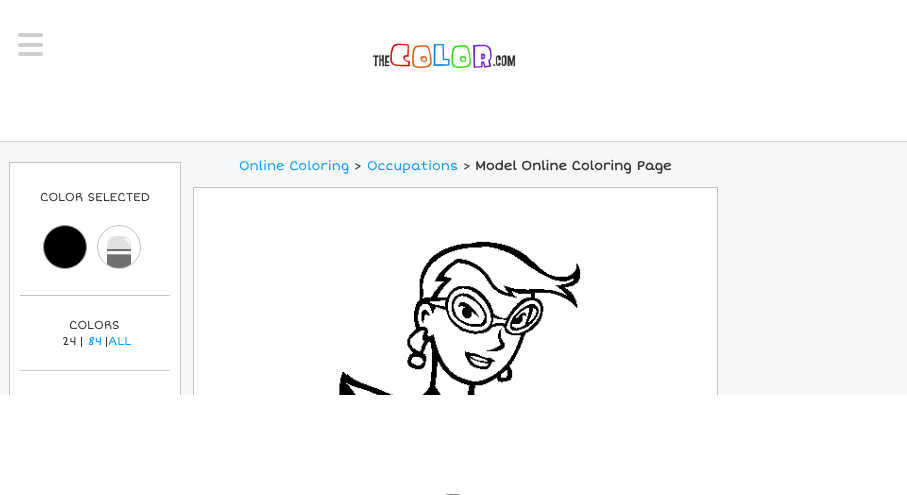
async function draw(canvas) {
  canvas.width = 907
  canvas.height = 495
  const ctx = canvas.getContext('2d')
  ctx.miterLimit = 4
  ctx.fontKerning = 'normal'
  async function loadImage(src) {
    const img = new Image()
    img.src = src
    await img.decode()
    return img
  }

  ctx.fillStyle = '#f6f7f9'
  ctx.fillRect(0, 0, 907, 495)
  ctx.fillStyle = '#fff'
  ctx.fillRect(0, 0, 907, 141)
  ctx.fillStyle = '#d7d7d7'
  ctx.fillRect(0, 141, 907, 1)
  ctx.fillStyle = '#cecece'
  ctx.beginPath()
  ctx.roundRect(18, 33, 25, 4, 2)
  ctx.fill()
  ctx.beginPath()
  ctx.roundRect(18, 43, 25, 4, 2)
  ctx.fill()
  ctx.beginPath()
  ctx.roundRect(18, 52, 25, 4, 2)
  ctx.fill()
  ctx.drawImage(await loadImage('image0.png'), 372, 43, 144, 26)
  ctx.font = '13px Short Stack'
  ctx.fillStyle = '#099aff'
  ctx.fillText('Online Coloring', 239, 170)
  ctx.fillStyle = '#333'
  ctx.fillText('>', 354, 170)
  ctx.fillStyle = '#099aff'
  ctx.fillText('Occupations', 367, 170)
  ctx.fillStyle = '#333'
  ctx.fillText('>', 463, 170)
  ctx.font = 'bold 13px Short Stack'
  ctx.fillText('Model Online Coloring Page', 475, 170)
  ctx.fillStyle = '#fff'
  ctx.fillRect(194, 188, 523, 207)
  ctx.strokeStyle = '#c3c3c3'
  ctx.strokeRect(193.5, 187.5, 524, 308)
  ctx.drawImage(await loadImage('image1.png'), 290, 241, 291, 154)
  ctx.fillRect(10, 163, 170, 232)
  ctx.strokeRect(9.5, 162.5, 171, 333)
  ctx.font = '12px Short Stack'
  ctx.fillStyle = '#333'
  ctx.fillText('COLOR SELECTED', 40, 201)
  ctx.fillStyle = '#c3c3c3'
  ctx.fillRect(20, 295, 150, 1)
  ctx.fillStyle = '#000'
  ctx.beginPath()
  ctx.arc(65, 247, 21.5, 0, 2 * Math.PI)
  ctx.fill()
  ctx.strokeStyle = '#999'
  ctx.stroke()
  ctx.beginPath()
  ctx.arc(119, 247, 21.5, 0, 2 * Math.PI)
  ctx.strokeStyle = '#c3c3c3'
  ctx.stroke()
  ctx.drawImage(await loadImage('image2.png'), 107, 236, 24, 32)
  ctx.fillStyle = '#cecece'
  ctx.fillRect(20, 370, 150, 1)
  ctx.fillStyle = '#333'
  ctx.fillText('COLORS', 69, 329)
  ctx.fillText('24', 62, 345)
  ctx.fillRect(81, 337, 1, 10)
  ctx.fillStyle = '#099aff'
  ctx.fillText('84', 88, 345)
  ctx.fillStyle = '#333'
  ctx.fillRect(106, 337, 1, 10)
  ctx.fillStyle = '#099aff'
  ctx.fillText('ALL', 108, 345)
  ctx.fillStyle = '#fff'
  ctx.fillRect(0, 395, 907, 100)
  ctx.beginPath()
  ctx.roundRect(442.5, 494.5, 21, 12, 10.5)
  ctx.strokeStyle = '#f9f9f9'
  ctx.stroke()
  ctx.beginPath()
  ctx.roundRect(442.5, 494.5, 21, 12, 10.5)
  ctx.strokeStyle = '#888'
  ctx.stroke()
}

draw(document.querySelector('canvas'))
